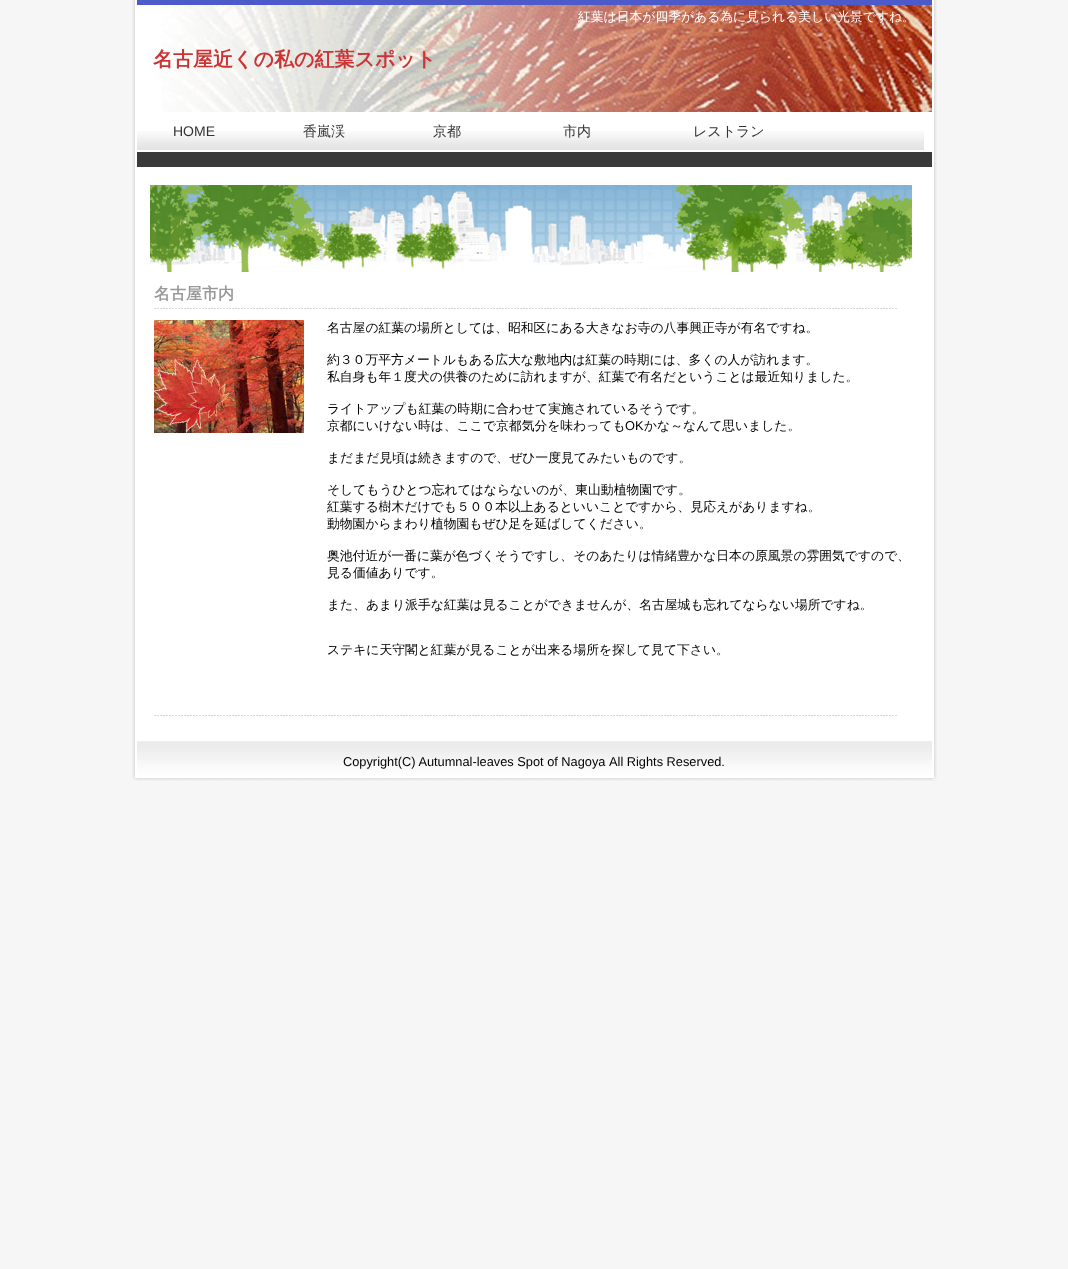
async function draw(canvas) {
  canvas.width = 1068
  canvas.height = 1269
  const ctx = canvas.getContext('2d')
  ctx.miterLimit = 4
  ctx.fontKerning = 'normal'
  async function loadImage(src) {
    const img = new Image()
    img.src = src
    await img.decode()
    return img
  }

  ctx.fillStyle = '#f6f6f6'
  ctx.fillRect(0, 0, 1068, 1269)
  ctx.drawImage(await loadImage('image0.png'), 132, 0, 5, 741)
  ctx.fillStyle = '#fff'
  ctx.fillRect(137, 5, 795, 736)
  ctx.fillStyle = '#4d5ac9'
  ctx.fillRect(137, 0, 795, 5)
  ctx.drawImage(await loadImage('image1.png'), 161, 5, 771, 107)
  ctx.font = '500 12.8px WenQuanYi Zen Hei'
  ctx.fillStyle = '#fff'
  ctx.fillText('紅葉は日本が四季がある為に見られる美しい光景ですね。', 578, 21)
  ctx.font = 'bold 20px WenQuanYi Zen Hei'
  ctx.fillStyle = '#c33'
  ctx.fillText('名古屋近くの私の紅葉スポット', 153, 66)
  ctx.drawImage(await loadImage('image2.png'), 137, 131, 787, 19)
  ctx.font = '14px Liberation Sans'
  ctx.fillStyle = '#333'
  ctx.fillText('HOME', 173, 136)
  ctx.font = '500 14px WenQuanYi Zen Hei'
  ctx.fillText('香嵐渓', 303, 136)
  ctx.fillText('京都', 433, 136)
  ctx.fillText('市内', 563, 136)
  ctx.fillText('レストラン', 693, 136)
  ctx.fillStyle = '#3a3a3a'
  ctx.fillRect(137, 152, 795, 15)
  ctx.drawImage(await loadImage('image3.png'), 150, 185, 762, 87)
  ctx.font = 'bold 16px WenQuanYi Zen Hei'
  ctx.fillStyle = '#999'
  ctx.fillText('名古屋市内', 154, 299)
  ctx.drawImage(await loadImage('image4.png'), 154, 308, 743, 1)
  ctx.drawImage(await loadImage('image5.png'), 154, 320, 150, 113)
  ctx.font = '500 12.8px WenQuanYi Zen Hei'
  ctx.fillStyle = '#000'
  ctx.fillText('名古屋の紅葉の場所としては、昭和区にある大きなお寺の八事興正寺が有名ですね。', 327, 332)
  ctx.fillText('約３０万平方メートルもある広大な敷地内は紅葉の時期には、多くの人が訪れます。', 327, 364)
  ctx.fillText('私自身も年１度犬の供養のために訪れますが、紅葉で有名だということは最近知りました。', 327, 381)
  ctx.fillText('ライトアップも紅葉の時期に合わせて実施されているそうです。', 327, 413)
  ctx.fillText('京都にいけない時は、ここで京都気分を味わっても', 327, 430)
  ctx.font = '12.8px Liberation Sans'
  ctx.fillText('OK', 625, 430)
  ctx.font = '500 12.8px WenQuanYi Zen Hei'
  ctx.fillText('かな～なんて思いました。', 644, 430)
  ctx.fillText('まだまだ見頃は続きますので、ぜひ一度見てみたいものです。', 327, 462)
  ctx.fillText('そしてもうひとつ忘れてはならないのが、東山動植物園です。', 327, 494)
  ctx.fillText('紅葉する樹木だけでも５００本以上あるといいことですから、見応えがありますね。', 327, 511)
  ctx.fillText('動物園からまわり植物園もぜひ足を延ばしてください。', 327, 528)
  ctx.fillText('奥池付近が一番に葉が色づくそうですし、そのあたりは情緒豊かな日本の原風景の雰囲気ですので、', 327, 560)
  ctx.fillText('見る価値ありです。', 327, 577)
  ctx.fillText('また、あまり派手な紅葉は見ることができませんが、名古屋城も忘れてならない場所ですね。', 327, 609)
  ctx.fillText('ステキに天守閣と紅葉が見ることが出来る場所を探して見て下さい。', 327, 654)
  ctx.drawImage(await loadImage('image4.png'), 154, 715, 743, 1)
  ctx.drawImage(await loadImage('image6.png'), 932, 0, 5, 741)
  ctx.drawImage(await loadImage('image7.png'), 132, 741, 5, 40)
  ctx.drawImage(await loadImage('image8.png'), 137, 741, 795, 40)
  ctx.font = '12.8px Liberation Sans'
  ctx.fillText('Copyright(C) Autumnal-leaves Spot of Nagoya', 343, 766)
  ctx.fillText('All Rights Reserved.', 609, 766)
  ctx.drawImage(await loadImage('image9.png'), 932, 741, 5, 40)
}

draw(document.querySelector('canvas'))
